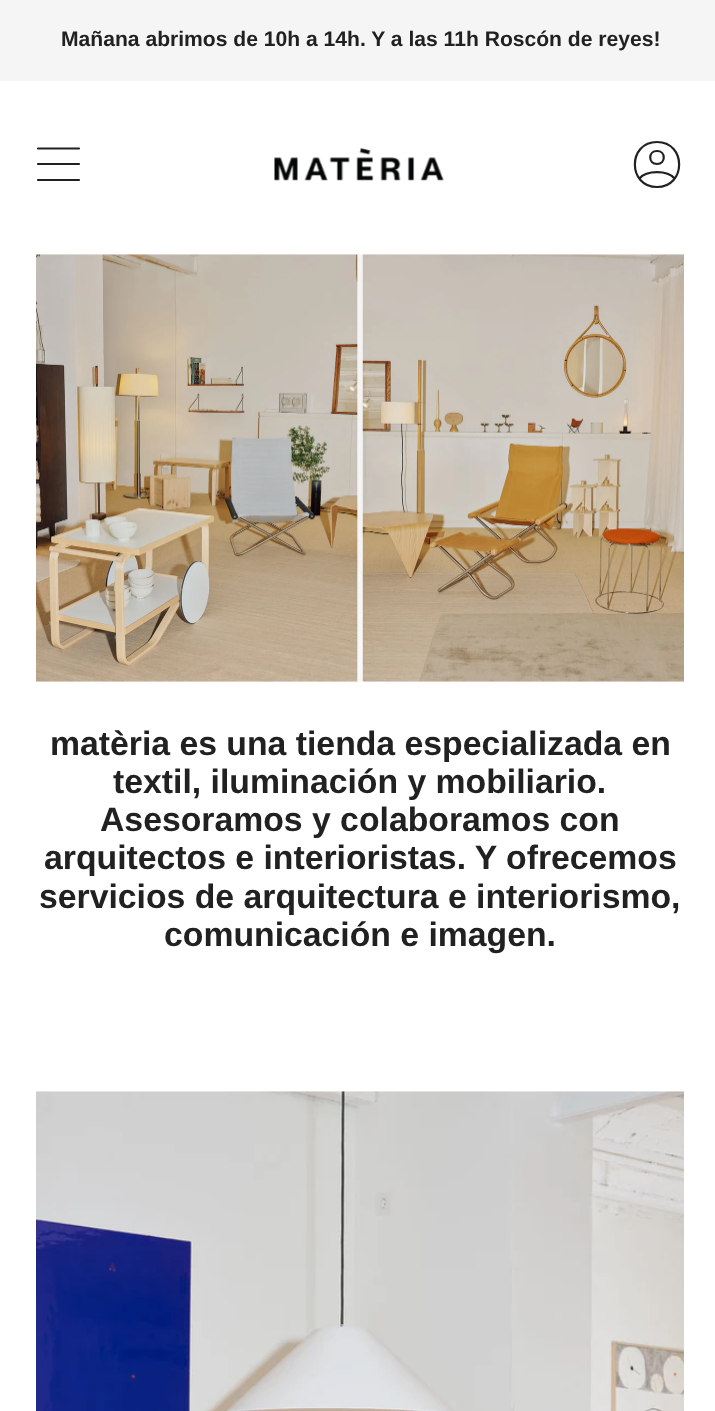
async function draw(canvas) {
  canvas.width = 715
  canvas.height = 1411
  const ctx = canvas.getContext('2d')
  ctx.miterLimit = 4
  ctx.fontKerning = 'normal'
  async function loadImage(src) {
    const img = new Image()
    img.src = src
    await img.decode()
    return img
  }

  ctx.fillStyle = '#fff'
  ctx.fillRect(0, 0, 715, 1411)
  ctx.fillStyle = '#f5f5f5'
  ctx.fillRect(0, 0, 715, 81)
  ctx.font = 'bold 21.1px Liberation Sans'
  ctx.fillStyle = '#212121'
  ctx.fillText('Mañana abrimos de 10h a 14h. Y a las 11h Roscón de reyes!', 61, 46)
  ctx.beginPath()
  ctx.moveTo(38, 148.5)
  ctx.lineTo(79, 148.5)
  ctx.moveTo(38, 164)
  ctx.lineTo(79, 164)
  ctx.moveTo(38, 180)
  ctx.lineTo(79, 180)
  ctx.strokeStyle = '#212121'
  ctx.lineWidth = 2.2
  ctx.lineCap = 'round'
  ctx.lineJoin = 'round'
  ctx.stroke()
  ctx.drawImage(await loadImage('image0.png'), 274, 148, 170, 33)
  ctx.beginPath()
  ctx.moveTo(657, 142)
  ctx.bezierCurveTo(627.5, 142, 627.5, 187, 657, 187)
  ctx.bezierCurveTo(686.5, 187, 686.5, 142, 657, 142)
  ctx.closePath()
  ctx.moveTo(639.5, 178.5)
  ctx.bezierCurveTo(646.5, 170, 667.5, 170, 674.5, 178.5)
  ctx.moveTo(657, 164)
  ctx.bezierCurveTo(666, 164, 666, 151, 657, 151)
  ctx.bezierCurveTo(648, 151, 648, 164, 657, 164)
  ctx.closePath()
  ctx.stroke()
  ctx.drawImage(await loadImage('image1.png'), 36, 254, 648, 428)
  ctx.font = 'bold 33.75px Liberation Sans'
  ctx.fillText('matèria es una tienda especializada en', 50, 755)
  ctx.fillText('textil, iluminación y mobiliario.', 113, 793)
  ctx.fillText('Asesoramos y colaboramos con', 100, 831)
  ctx.fillText('arquitectos e interioristas. Y ofrecemos', 44, 869)
  ctx.fillText('servicios de arquitectura e interiorismo,', 39, 908)
  ctx.fillText('comunicación e imagen.', 164, 946)
  ctx.drawImage(await loadImage('image2.png'), 36, 1091, 648, 320)
}

draw(document.querySelector('canvas'))
